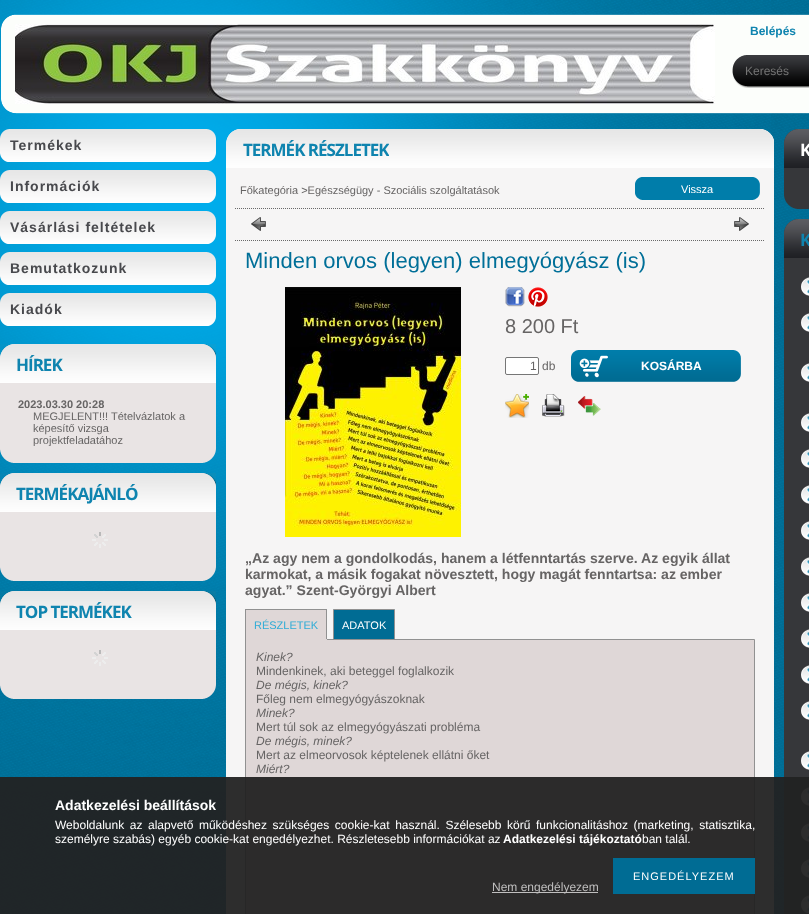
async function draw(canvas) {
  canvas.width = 809
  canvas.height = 914
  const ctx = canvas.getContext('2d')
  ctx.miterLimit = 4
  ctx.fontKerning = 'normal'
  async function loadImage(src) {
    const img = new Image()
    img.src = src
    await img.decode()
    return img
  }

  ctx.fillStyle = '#fff'
  ctx.fillRect(0, 0, 809, 914)
  ctx.drawImage(await loadImage('image0.png'), 0, 0, 809, 914)
  ctx.drawImage(await loadImage('image1.png'), 0, 0, 771, 791)
  ctx.drawImage(await loadImage('image2.png'), 1, 14, 808, 100)
  ctx.drawImage(await loadImage('image3.png'), 15, 24, 700, 80)
  ctx.font = 'bold 12px Liberation Sans'
  ctx.fillStyle = '#0f84af'
  ctx.fillText('Belépés', 750, 35)
  ctx.drawImage(await loadImage('image4.png'), 732, 55, 77, 33)
  ctx.font = '12px Liberation Sans'
  ctx.fillStyle = '#757575'
  ctx.fillText('Keresés', 745, 75)
  ctx.drawImage(await loadImage('image5.png'), 0, 129, 216, 33)
  ctx.letterSpacing = '1px'
  ctx.font = 'bold 14px Liberation Sans'
  ctx.fillStyle = '#48494d'
  ctx.fillText('Termékek', 10, 150)
  ctx.drawImage(await loadImage('image6.png'), 0, 170, 216, 33)
  ctx.fillText('Információk', 10, 191)
  ctx.drawImage(await loadImage('image7.png'), 0, 211, 216, 33)
  ctx.fillText('Vásárlási feltételek', 10, 232)
  ctx.drawImage(await loadImage('image8.png'), 0, 252, 216, 33)
  ctx.fillText('Bemutatkozunk', 10, 273)
  ctx.drawImage(await loadImage('image9.png'), 0, 293, 216, 33)
  ctx.fillText('Kiadók', 10, 314)
  ctx.drawImage(await loadImage('image10.png'), 0, 344, 216, 39)
  ctx.letterSpacing = '-1px'
  ctx.font = 'bold 17px Open Sans'
  ctx.fillStyle = '#0f84af'
  ctx.fillText('HÍREK', 16, 371)
  ctx.fillStyle = '#e9e4e4'
  ctx.fillRect(0, 383, 216, 63)
  ctx.letterSpacing = '0px'
  ctx.font = 'bold 11px Liberation Sans'
  ctx.fillStyle = '#666464'
  ctx.fillText('2023.03.30 20:28', 18, 408)
  ctx.font = '11px Liberation Sans'
  ctx.fillText('MEGJELENT!!! Tételvázlatok a', 33, 420)
  ctx.fillText('képesítő vizsga', 33, 432)
  ctx.save()
  ctx.beginPath()
  ctx.rect(18, 393, 180, 53)
  ctx.clip()
  ctx.fillText('projektfeladatához', 33, 444)
  ctx.restore()
  ctx.drawImage(await loadImage('image11.png'), 0, 446, 216, 17)
  ctx.drawImage(await loadImage('image12.png'), 0, 473, 216, 39)
  ctx.letterSpacing = '-1px'
  ctx.font = 'bold 17px Open Sans'
  ctx.fillStyle = '#0f84af'
  ctx.fillText('TERMÉKAJÁNLÓ', 16, 500)
  ctx.fillStyle = '#e9e4e4'
  ctx.fillRect(0, 512, 216, 52)
  ctx.drawImage(await loadImage('image13.png'), 92, 532, 16, 16)
  ctx.drawImage(await loadImage('image14.png'), 0, 564, 216, 17)
  ctx.drawImage(await loadImage('image15.png'), 0, 591, 216, 39)
  ctx.fillStyle = '#0f84af'
  ctx.fillText('TOP TERMÉKEK', 16, 618)
  ctx.fillStyle = '#e9e4e4'
  ctx.fillRect(0, 630, 216, 52)
  ctx.drawImage(await loadImage('image13.png'), 92, 650, 16, 16)
  ctx.drawImage(await loadImage('image16.png'), 0, 682, 216, 17)
  ctx.drawImage(await loadImage('image17.png'), 226, 129, 548, 39)
  ctx.save()
  ctx.beginPath()
  ctx.rect(226, 129, 163, 36)
  ctx.clip()
  ctx.fillStyle = '#0f84af'
  ctx.fillText('TERMÉK RÉSZLETEK', 243, 156)
  ctx.restore()
  ctx.fillStyle = '#f6f5f5'
  ctx.fillRect(226, 168, 548, 746)
  ctx.letterSpacing = '0px'
  ctx.font = '11px Liberation Sans'
  ctx.fillStyle = '#666464'
  ctx.fillText('Főkategória >Egészségügy - Szociális szolgáltatások', 240, 194)
  ctx.drawImage(await loadImage('image18.png'), 635, 177, 125, 23)
  ctx.fillStyle = '#fff'
  ctx.fillText('Vissza', 681, 193)
  ctx.beginPath()
  ctx.moveTo(235, 208.5)
  ctx.lineTo(765, 208.5)
  ctx.strokeStyle = '#696969'
  ctx.setLineDash([1, 1])
  ctx.stroke()
  ctx.drawImage(await loadImage('image19.png'), 251, 217, 15, 14)
  ctx.drawImage(await loadImage('image20.png'), 734, 217, 15, 14)
  ctx.beginPath()
  ctx.moveTo(235, 240.5)
  ctx.lineTo(765, 240.5)
  ctx.stroke()
  ctx.font = '22px Liberation Sans'
  ctx.fillStyle = '#006f98'
  ctx.fillText('Minden orvos (legyen) elmegyógyász (is)', 245, 268)
  ctx.drawImage(await loadImage('image21.png'), 285, 287, 176, 250)
  ctx.drawImage(await loadImage('image22.png'), 505, 287, 20, 20)
  ctx.drawImage(await loadImage('image23.png'), 528, 287, 20, 20)
  ctx.font = '20px Liberation Sans'
  ctx.fillStyle = '#666464'
  ctx.fillText('8 200 Ft', 505, 333)
  ctx.fillStyle = '#fff'
  ctx.beginPath()
  ctx.roundRect(505.5, 357.5, 33, 17, 1.5)
  ctx.fill()
  ctx.strokeStyle = '#767676'
  ctx.setLineDash([])
  ctx.stroke()
  ctx.font = '12px Liberation Sans'
  ctx.fillStyle = '#666464'
  ctx.fillText('1', 530, 370)
  ctx.fillText('db', 542, 370)
  ctx.drawImage(await loadImage('image24.png'), 571, 350, 170, 32)
  ctx.font = 'bold 12px Liberation Sans'
  ctx.fillStyle = '#fff'
  ctx.fillText('KOSÁRBA', 641, 370)
  ctx.drawImage(await loadImage('image25.png'), 505, 394, 24, 24)
  ctx.drawImage(await loadImage('image26.png'), 542, 394, 23, 23)
  ctx.drawImage(await loadImage('image27.png'), 578, 396, 23, 20)
  ctx.font = 'bold 14.05px Liberation Sans'
  ctx.fillStyle = '#666464'
  ctx.fillText('„Az agy nem a gondolkodás, hanem a létfenntartás szerve. Az egyik állat', 245, 563)
  ctx.fillText('karmokat, a másik fogakat növesztett, hogy magát fenntartsa: az ember', 245, 579)
  ctx.fillText('agyat.” Szent-Györgyi Albert', 245, 595)
  ctx.fillStyle = '#dfd7d7'
  ctx.fillRect(246, 610, 80, 29)
  ctx.fillStyle = '#919191'
  ctx.fillRect(245, 609, 82, 1)
  ctx.fillStyle = '#dfd7d7'
  ctx.beginPath()
  ctx.rect(245.5, 639.5, 509, 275)
  ctx.fill()
  ctx.strokeStyle = '#919191'
  ctx.stroke()
  ctx.fillStyle = '#919191'
  ctx.fillRect(326, 609, 1, 31)
  ctx.fillStyle = '#dfd7d7'
  ctx.fillRect(245, 639, 82, 1)
  ctx.fillStyle = '#919191'
  ctx.fillRect(245, 609, 1, 31)
  ctx.font = '11px Liberation Sans'
  ctx.fillStyle = '#2facd6'
  ctx.fillText('RÉSZLETEK', 254, 629)
  ctx.fillStyle = '#006c94'
  ctx.beginPath()
  ctx.rect(333.5, 609.5, 61, 30)
  ctx.fill()
  ctx.stroke()
  ctx.fillStyle = '#fff'
  ctx.fillText('ADATOK', 342, 629)
  ctx.font = 'italic 12px Liberation Sans'
  ctx.fillStyle = '#666464'
  ctx.fillText('Kinek?', 256, 661)
  ctx.font = '12px Liberation Sans'
  ctx.fillText('Mindenkinek, aki beteggel foglalkozik', 256, 675)
  ctx.font = 'italic 12px Liberation Sans'
  ctx.fillText('De mégis, kinek?', 256, 689)
  ctx.font = '12px Liberation Sans'
  ctx.fillText('Főleg nem elmegyógyászoknak', 256, 703)
  ctx.font = 'italic 12px Liberation Sans'
  ctx.fillText('Minek?', 256, 717)
  ctx.font = '12px Liberation Sans'
  ctx.fillText('Mert túl sok az elmegyógyászati probléma', 256, 731)
  ctx.font = 'italic 12px Liberation Sans'
  ctx.fillText('De mégis, minek?', 256, 745)
  ctx.font = '12px Liberation Sans'
  ctx.fillText('Mert az elmeorvosok képtelenek ellátni őket', 256, 759)
  ctx.font = 'italic 12px Liberation Sans'
  ctx.fillText('Miért?', 256, 773)
  ctx.drawImage(await loadImage('image28.png'), 784, 129, 25, 39)
  ctx.letterSpacing = '-1px'
  ctx.font = 'bold 17px Open Sans'
  ctx.fillStyle = '#fff'
  ctx.fillText('K', 800, 156)
  ctx.fillStyle = '#36373a'
  ctx.fillRect(784, 168, 25, 24)
  ctx.drawImage(await loadImage('image29.png'), 784, 192, 25, 17)
  ctx.drawImage(await loadImage('image30.png'), 784, 219, 25, 39)
  ctx.fillStyle = '#0f84af'
  ctx.fillText('K', 800, 246)
  ctx.fillStyle = '#36373a'
  ctx.fillRect(784, 258, 25, 656)
  ctx.drawImage(await loadImage('image31.png'), 801, 277, 8, 19)
  ctx.drawImage(await loadImage('image31.png'), 801, 313, 8, 19)
  ctx.drawImage(await loadImage('image31.png'), 801, 363, 8, 19)
  ctx.drawImage(await loadImage('image31.png'), 801, 413, 8, 19)
  ctx.drawImage(await loadImage('image31.png'), 801, 449, 8, 19)
  ctx.drawImage(await loadImage('image31.png'), 801, 485, 8, 19)
  ctx.drawImage(await loadImage('image31.png'), 801, 521, 8, 19)
  ctx.drawImage(await loadImage('image31.png'), 801, 557, 8, 19)
  ctx.drawImage(await loadImage('image31.png'), 801, 593, 8, 19)
  ctx.drawImage(await loadImage('image31.png'), 801, 629, 8, 19)
  ctx.drawImage(await loadImage('image31.png'), 801, 665, 8, 19)
  ctx.drawImage(await loadImage('image31.png'), 801, 701, 8, 19)
  ctx.drawImage(await loadImage('image31.png'), 801, 751, 8, 19)
  ctx.drawImage(await loadImage('image31.png'), 801, 787, 8, 19)
  ctx.drawImage(await loadImage('image31.png'), 801, 823, 8, 19)
  ctx.drawImage(await loadImage('image31.png'), 801, 859, 8, 19)
  ctx.drawImage(await loadImage('image31.png'), 801, 895, 8, 19)
  ctx.fillStyle = '#222222f2'
  ctx.fillRect(0, 777, 809, 137)
  ctx.letterSpacing = '0px'
  ctx.font = 'bold 14px Liberation Sans'
  ctx.fillStyle = '#fff'
  ctx.fillText('Adatkezelési beállítások', 55, 810)
  ctx.wordSpacing = '2.25px'
  ctx.font = '12px Liberation Sans'
  ctx.fillText('Weboldalunk az alapvető működéshez szükséges cookie-kat használ. Szélesebb körű funkcionalitáshoz (marketing, statisztika,', 55, 829)
  ctx.wordSpacing = '0px'
  ctx.fillText('személyre szabás) egyéb cookie-kat engedélyezhet. Részletesebb információkat az', 55, 843)
  ctx.font = 'bold 12px Liberation Sans'
  ctx.fillText('Adatkezelési tájékoztató', 503, 843)
  ctx.font = '12px Liberation Sans'
  ctx.fillText('ban talál.', 642, 843)
  ctx.fillStyle = '#006c94'
  ctx.fillRect(613, 858, 142, 36)
  ctx.letterSpacing = '1px'
  ctx.font = '11px Liberation Sans'
  ctx.fillStyle = '#fff'
  ctx.fillText('ENGEDÉLYEZEM', 633, 880)
  ctx.fillStyle = '#c0bfbf'
  ctx.fillRect(492, 892, 106, 1)
  ctx.letterSpacing = '0px'
  ctx.font = '12px Liberation Sans'
  ctx.fillText('Nem engedélyezem', 492, 891)
}

draw(document.querySelector('canvas'))
